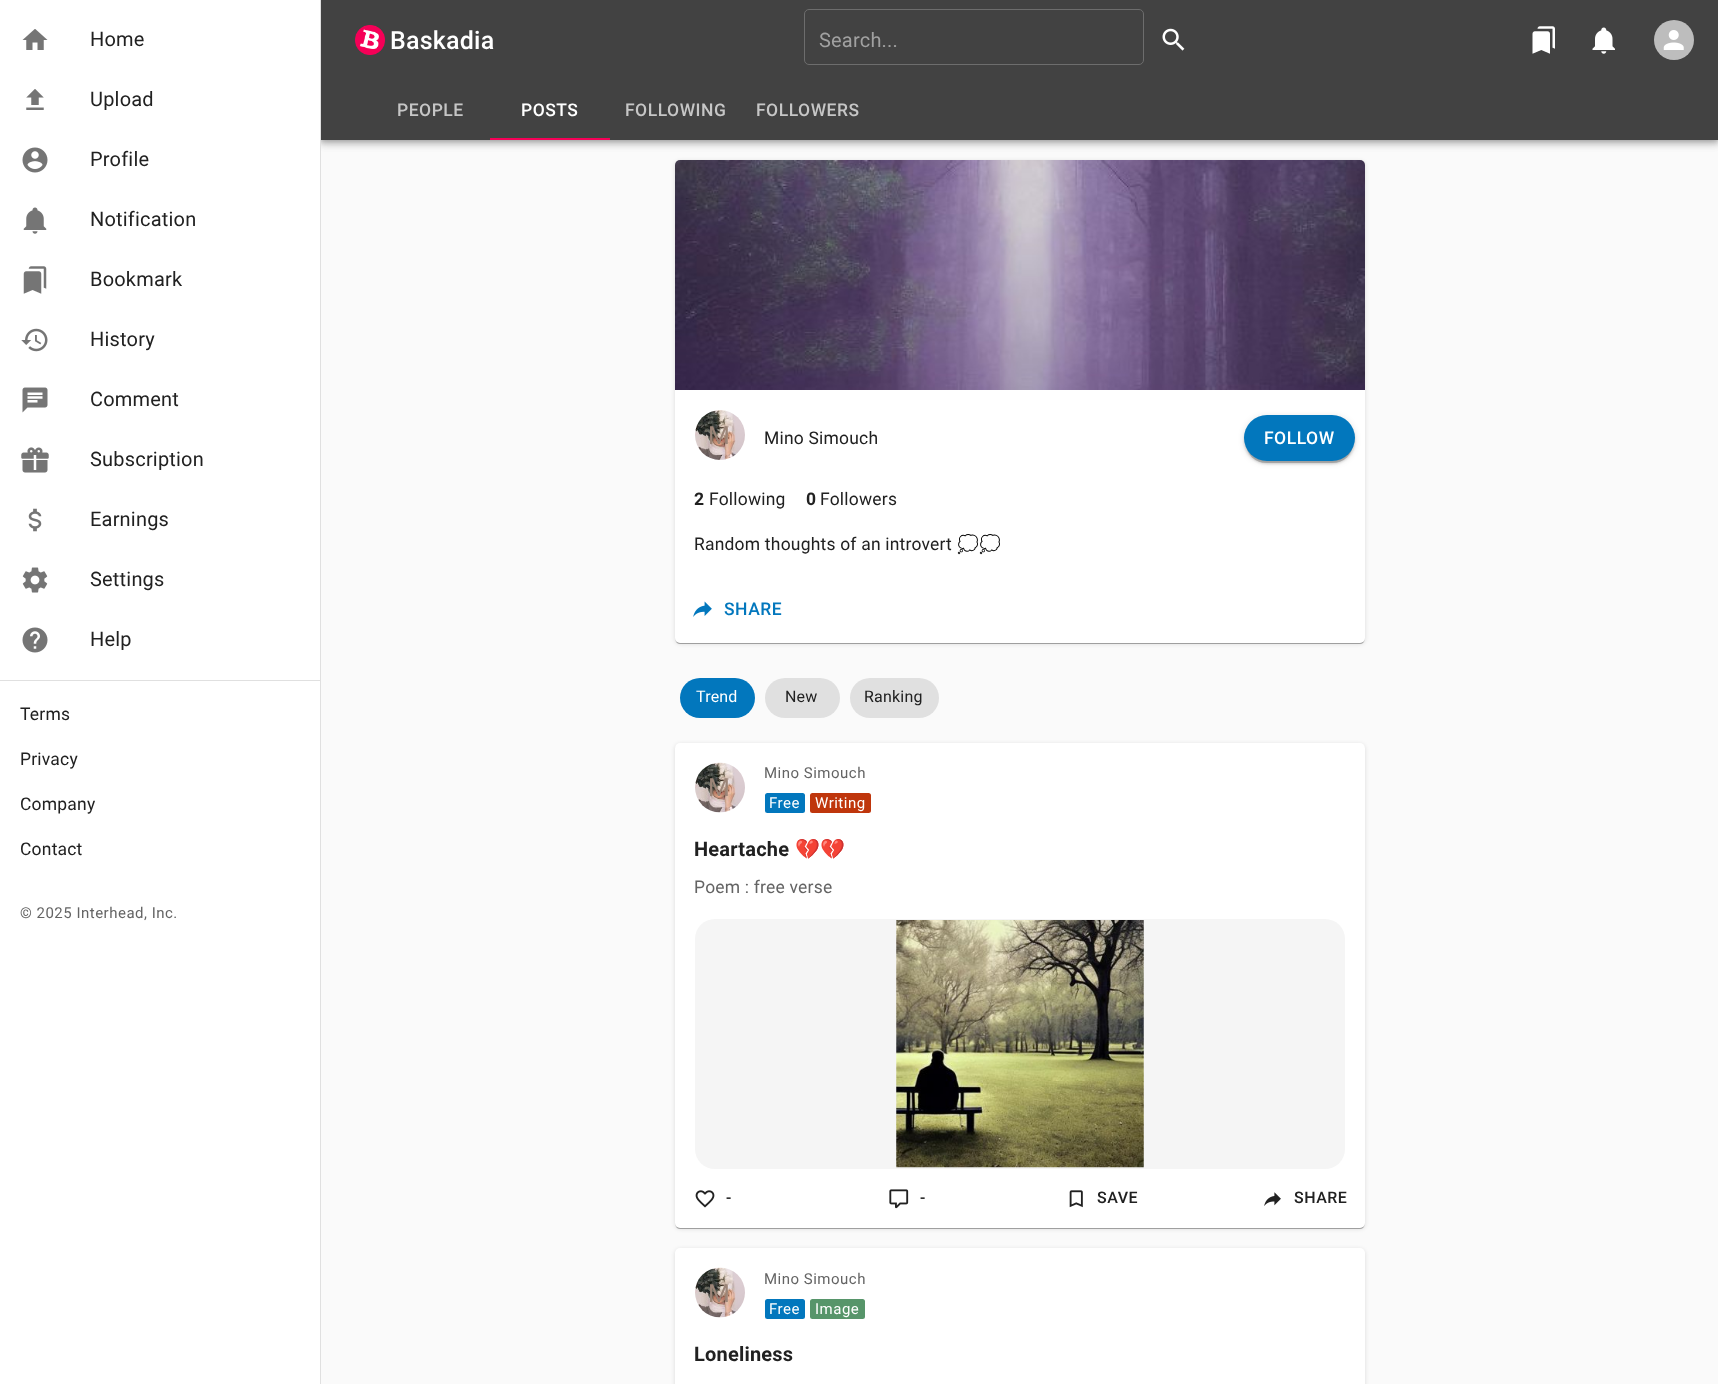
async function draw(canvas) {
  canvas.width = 1718
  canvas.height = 1384
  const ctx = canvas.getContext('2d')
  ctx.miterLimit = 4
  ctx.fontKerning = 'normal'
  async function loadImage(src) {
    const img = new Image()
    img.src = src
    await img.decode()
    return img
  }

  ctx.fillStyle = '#fafafa'
  ctx.fillRect(0, 0, 1718, 1384)
  ctx.fillStyle = '#0000001f'
  ctx.filter = 'blur(6px)'
  ctx.beginPath()
  ctx.rect(320, 1, 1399, 140)
  ctx.fill()
  ctx.filter = 'none'
  ctx.fillStyle = '#00000024'
  ctx.filter = 'blur(3px)'
  ctx.beginPath()
  ctx.rect(320, 5, 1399, 140)
  ctx.fill()
  ctx.filter = 'none'
  ctx.fillStyle = '#00000033'
  ctx.filter = 'blur(2.5px)'
  ctx.beginPath()
  ctx.rect(321, 4, 1397, 137)
  ctx.fill()
  ctx.filter = 'none'
  ctx.fillStyle = '#fff'
  ctx.fillRect(0, 0, 320, 1384)
  ctx.fillStyle = '#e0e0e0'
  ctx.fillRect(320, 0, 1, 1384)
  ctx.drawImage(await loadImage('image0.png'), 22, 29, 26, 21)
  ctx.letterSpacing = '0.2px'
  ctx.font = '20px Roboto'
  ctx.fillStyle = '#212121'
  ctx.fillText('Home', 90, 46)
  ctx.drawImage(await loadImage('image1.png'), 26, 89, 18, 21)
  ctx.fillText('Upload', 90, 106)
  ctx.drawImage(await loadImage('image2.png'), 22, 147, 26, 26)
  ctx.fillText('Profile', 90, 166)
  ctx.drawImage(await loadImage('image3.png'), 23, 207, 24, 27)
  ctx.fillText('Notification', 90, 226)
  ctx.drawImage(await loadImage('image4.png'), 23, 266, 24, 28)
  ctx.fillText('Bookmark', 90, 286)
  ctx.drawImage(await loadImage('image5.png'), 21, 328, 27, 24)
  ctx.fillText('History', 90, 346)
  ctx.drawImage(await loadImage('image6.png'), 22, 387, 26, 26)
  ctx.fillText('Comment', 90, 406)
  ctx.drawImage(await loadImage('image7.png'), 21, 447, 28, 26)
  ctx.fillText('Subscription', 90, 466)
  ctx.drawImage(await loadImage('image8.png'), 28, 508, 14, 24)
  ctx.fillText('Earnings', 90, 526)
  ctx.drawImage(await loadImage('image9.png'), 22, 567, 26, 26)
  ctx.fillText('Settings', 90, 586)
  ctx.drawImage(await loadImage('image10.png'), 22, 627, 26, 26)
  ctx.fillText('Help', 90, 646)
  ctx.fillStyle = '#e0e0e0'
  ctx.fillRect(0, 680, 320, 1)
  ctx.font = '17.5px Roboto'
  ctx.fillStyle = '#212121'
  ctx.fillText('Terms', 20, 720)
  ctx.fillText('Privacy', 20, 765)
  ctx.fillText('Company', 20, 810)
  ctx.fillText('Contact', 20, 855)
  ctx.letterSpacing = '0.5px'
  ctx.font = '15px Roboto'
  ctx.fillStyle = '#646464'
  ctx.fillText('© 2025 Interhead, Inc.', 20, 918)
  ctx.fillStyle = '#424242'
  ctx.fillRect(321, 0, 1397, 140)
  ctx.drawImage(await loadImage('image11.png'), 355, 25, 30, 30)
  ctx.letterSpacing = '0.2px'
  ctx.font = '500 25px Roboto'
  ctx.fillStyle = '#fff'
  ctx.fillText('Baskadia', 390, 49)
  ctx.beginPath()
  ctx.roundRect(804.5, 9.5, 339, 55, 4.5)
  ctx.strokeStyle = '#6d6d6d'
  ctx.stroke()
  ctx.font = '20px Roboto'
  ctx.fillStyle = '#a1a1a1'
  ctx.fillText('Search...', 819, 47)
  ctx.drawImage(await loadImage('image12.png'), 1162, 28, 23, 23)
  ctx.drawImage(await loadImage('image13.png'), 1532, 26, 23, 28)
  ctx.drawImage(await loadImage('image14.png'), 1592, 27, 23, 27)
  ctx.fillStyle = '#bdbdbd'
  ctx.beginPath()
  ctx.arc(1674, 40, 20, 0, 2 * Math.PI)
  ctx.fill()
  ctx.drawImage(await loadImage('image15.png'), 1663, 30, 21, 20)
  ctx.letterSpacing = '0.5px'
  ctx.font = '500 17.5px Roboto'
  ctx.fillStyle = '#c6c6c6'
  ctx.fillText('PEOPLE', 397, 116)
  ctx.fillStyle = '#fff'
  ctx.fillText('POSTS', 521, 116)
  ctx.fillStyle = '#c6c6c6'
  ctx.fillText('FOLLOWING', 625, 116)
  ctx.fillText('FOLLOWERS', 756, 116)
  ctx.fillStyle = '#f50057'
  ctx.fillRect(490, 138, 120, 2)
  ctx.fillStyle = '#0000001f'
  ctx.filter = 'blur(2px)'
  ctx.beginPath()
  ctx.roundRect(675, 161, 690, 483, 5)
  ctx.fill()
  ctx.filter = 'none'
  ctx.fillStyle = '#00000024'
  ctx.filter = 'blur(0.5px)'
  ctx.beginPath()
  ctx.roundRect(675, 161, 690, 483, 5)
  ctx.fill()
  ctx.filter = 'none'
  ctx.fillStyle = '#00000033'
  ctx.filter = 'blur(0.5px)'
  ctx.beginPath()
  ctx.roundRect(676, 164, 688, 480, 4)
  ctx.fill()
  ctx.filter = 'none'
  ctx.fillStyle = '#fff'
  ctx.beginPath()
  ctx.roundRect(675, 160, 690, 483, 5)
  ctx.fill()
  ctx.drawImage(await loadImage('image16.png'), 675, 160, 690, 230)
  ctx.drawImage(await loadImage('image17.png'), 695, 410, 50, 50)
  ctx.letterSpacing = '0.2px'
  ctx.font = '25px Roboto'
  ctx.fillStyle = '#9b8578'
  ctx.fillText('M', 708, 444)
  ctx.font = '17.5px Roboto'
  ctx.fillStyle = '#212121'
  ctx.fillText('Mino Simouch', 764, 444)
  ctx.fillStyle = '#0000001f'
  ctx.filter = 'blur(3px)'
  ctx.beginPath()
  ctx.roundRect(1244, 416, 111, 47, 23)
  ctx.fill()
  ctx.filter = 'none'
  ctx.fillStyle = '#00000024'
  ctx.filter = 'blur(1px)'
  ctx.beginPath()
  ctx.roundRect(1244, 418, 111, 46, 23)
  ctx.fill()
  ctx.filter = 'none'
  ctx.fillStyle = '#00000033'
  ctx.filter = 'blur(0.5px)'
  ctx.beginPath()
  ctx.roundRect(1246, 421, 107, 42, 20)
  ctx.fill()
  ctx.filter = 'none'
  ctx.fillStyle = '#0277bd'
  ctx.beginPath()
  ctx.roundRect(1244, 415, 111, 46, 23)
  ctx.fill()
  ctx.letterSpacing = '0.5px'
  ctx.font = '500 17.5px Roboto'
  ctx.fillStyle = '#fff'
  ctx.fillText('FOLLOW', 1264, 444)
  ctx.letterSpacing = '0.2px'
  ctx.font = 'bold 17.5px Roboto'
  ctx.fillStyle = '#212121'
  ctx.fillText('2', 694, 505)
  ctx.font = '17.5px Roboto'
  ctx.fillText('Following', 709, 505)
  ctx.font = 'bold 17.5px Roboto'
  ctx.fillText('0', 806, 505)
  ctx.font = '17.5px Roboto'
  ctx.fillText('Followers', 820, 505)
  ctx.fillText('Random thoughts of an introvert', 694, 550)
  ctx.font = '17.5px Noto Color Emoji'
  ctx.fillText('💭💭', 957, 550)
  ctx.drawImage(await loadImage('image18.png'), 693, 601, 19, 16)
  ctx.letterSpacing = '0.5px'
  ctx.font = '500 17.5px Roboto'
  ctx.fillStyle = '#0277bd'
  ctx.fillText('SHARE', 724, 615)
  ctx.beginPath()
  ctx.roundRect(680, 678, 75, 40, 20)
  ctx.fill()
  ctx.letterSpacing = '0.2px'
  ctx.font = '16px Roboto'
  ctx.fillStyle = '#fff'
  ctx.fillText('Trend', 696, 702)
  ctx.fillStyle = '#e0e0e0'
  ctx.beginPath()
  ctx.roundRect(765, 678, 75, 40, 20)
  ctx.fill()
  ctx.fillStyle = '#212121'
  ctx.fillText('New', 785, 702)
  ctx.fillStyle = '#e0e0e0'
  ctx.beginPath()
  ctx.roundRect(850, 678, 89, 40, 20)
  ctx.fill()
  ctx.fillStyle = '#212121'
  ctx.fillText('Ranking', 864, 702)
  ctx.fillStyle = '#0000001f'
  ctx.filter = 'blur(2px)'
  ctx.beginPath()
  ctx.roundRect(675, 744, 690, 485, 5)
  ctx.fill()
  ctx.filter = 'none'
  ctx.fillStyle = '#00000024'
  ctx.filter = 'blur(0.5px)'
  ctx.beginPath()
  ctx.roundRect(675, 744, 690, 485, 5)
  ctx.fill()
  ctx.filter = 'none'
  ctx.fillStyle = '#00000033'
  ctx.filter = 'blur(0.5px)'
  ctx.beginPath()
  ctx.roundRect(676, 746, 688, 483, 4)
  ctx.fill()
  ctx.filter = 'none'
  ctx.fillStyle = '#fff'
  ctx.beginPath()
  ctx.roundRect(675, 743, 690, 485, 5)
  ctx.fill()
  ctx.letterSpacing = '0.5px'
  ctx.font = '15px Roboto'
  ctx.fillStyle = '#646464'
  ctx.fillText('Mino Simouch', 764, 778)
  ctx.fillStyle = '#0277bd'
  ctx.beginPath()
  ctx.roundRect(765, 793, 40, 20, 2.5)
  ctx.fill()
  ctx.fillStyle = '#fff'
  ctx.fillText('Free', 769, 808)
  ctx.fillStyle = '#bf360c'
  ctx.beginPath()
  ctx.roundRect(810, 793, 61, 20, 2.5)
  ctx.fill()
  ctx.fillStyle = '#fff'
  ctx.fillText('Writing', 815, 808)
  ctx.letterSpacing = '0.2px'
  ctx.font = 'bold 20px Roboto'
  ctx.fillStyle = '#212121'
  ctx.fillText('Heartache', 694, 856)
  ctx.font = 'bold 20px Noto Color Emoji'
  ctx.fillText('💔💔', 795, 856)
  ctx.font = '17.5px Roboto'
  ctx.fillStyle = '#646464'
  ctx.fillText('Poem : free verse', 694, 893)
  ctx.fillStyle = '#f5f5f5'
  ctx.beginPath()
  ctx.roundRect(695, 919, 650, 250, 20)
  ctx.fill()
  ctx.drawImage(await loadImage('image19.png'), 896, 920, 248, 248)
  ctx.drawImage(await loadImage('image20.png'), 695, 762, 50, 51)
  ctx.font = '25px Roboto'
  ctx.fillStyle = '#9b8578'
  ctx.fillText('M', 708, 796)
  ctx.drawImage(await loadImage('image21.png'), 695, 1190, 20, 18)
  ctx.letterSpacing = '0.5px'
  ctx.font = '500 16px Roboto'
  ctx.fillStyle = '#212121'
  ctx.fillText('-', 726, 1203)
  ctx.drawImage(await loadImage('image22.png'), 889, 1189, 20, 20)
  ctx.fillText('-', 920, 1203)
  ctx.drawImage(await loadImage('image23.png'), 1069, 1190, 14, 18)
  ctx.fillText('SAVE', 1097, 1203)
  ctx.drawImage(await loadImage('image24.png'), 1264, 1192, 17, 14)
  ctx.fillText('SHARE', 1294, 1203)
  ctx.fillStyle = '#0000001f'
  ctx.filter = 'blur(2px)'
  ctx.beginPath()
  ctx.roundRect(675, 1249, 690, 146, 5)
  ctx.fill()
  ctx.filter = 'none'
  ctx.fillStyle = '#fff'
  ctx.beginPath()
  ctx.roundRect(675, 1248, 690, 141, 5)
  ctx.fill()
  ctx.font = '15px Roboto'
  ctx.fillStyle = '#646464'
  ctx.fillText('Mino Simouch', 764, 1284)
  ctx.fillStyle = '#0277bd'
  ctx.beginPath()
  ctx.roundRect(765, 1299, 40, 20, 2.5)
  ctx.fill()
  ctx.fillStyle = '#fff'
  ctx.fillText('Free', 769, 1314)
  ctx.fillStyle = '#57956a'
  ctx.beginPath()
  ctx.roundRect(810, 1299, 55, 20, 2.5)
  ctx.fill()
  ctx.fillStyle = '#fff'
  ctx.fillText('Image', 815, 1314)
  ctx.letterSpacing = '0.2px'
  ctx.font = 'bold 20px Roboto'
  ctx.fillStyle = '#212121'
  ctx.fillText('Loneliness', 694, 1361)
  ctx.drawImage(await loadImage('image25.png'), 695, 1267, 50, 51)
  ctx.font = '25px Roboto'
  ctx.fillStyle = '#9b8578'
  ctx.fillText('M', 708, 1302)
}

draw(document.querySelector('canvas'))
